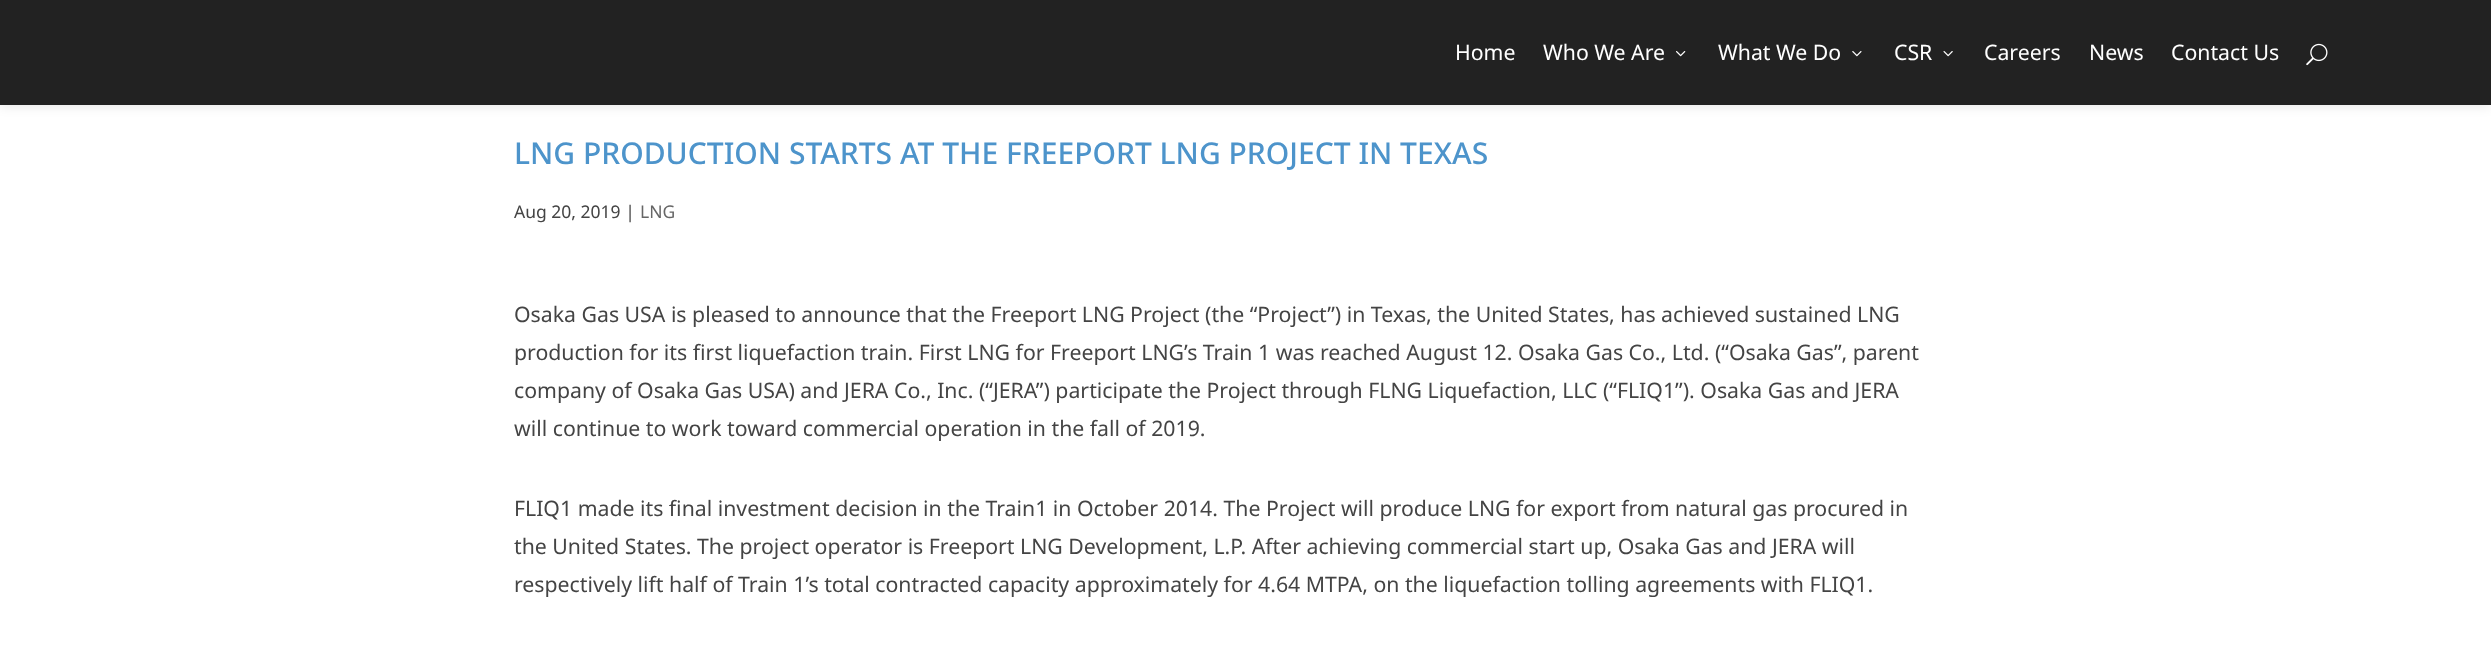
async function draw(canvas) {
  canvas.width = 2491
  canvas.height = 652
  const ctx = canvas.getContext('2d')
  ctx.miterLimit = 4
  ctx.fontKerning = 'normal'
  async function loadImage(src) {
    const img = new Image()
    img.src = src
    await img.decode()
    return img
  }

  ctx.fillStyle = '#fff'
  ctx.fillRect(0, 0, 2491, 652)
  ctx.fillStyle = '#0000001a'
  ctx.filter = 'blur(6px)'
  ctx.beginPath()
  ctx.rect(0, 1, 2491, 105)
  ctx.fill()
  ctx.filter = 'none'
  ctx.fillStyle = '#222'
  ctx.fillRect(0, 0, 2491, 105)
  ctx.font = '21.25px Noto Sans'
  ctx.fillStyle = '#fff'
  ctx.fillText('Home', 1455, 60)
  ctx.fillText('Who We Are', 1543, 60)
  ctx.drawImage(await loadImage('image0.png'), 1676, 51, 10, 6)
  ctx.fillText('What We Do', 1718, 60)
  ctx.drawImage(await loadImage('image1.png'), 1852, 51, 10, 6)
  ctx.fillText('CSR', 1894, 60)
  ctx.drawImage(await loadImage('image2.png'), 1943, 51, 10, 6)
  ctx.fillText('Careers', 1984, 60)
  ctx.fillText('News', 2089, 60)
  ctx.fillText('Contact Us', 2171, 60)
  ctx.drawImage(await loadImage('image3.png'), 2306, 43, 22, 23)
  ctx.font = '500 30px Noto Sans'
  ctx.fillStyle = '#4d94cb'
  ctx.fillText('LNG PRODUCTION STARTS AT THE FREEPORT LNG PROJECT IN TEXAS', 514, 164)
  ctx.font = '17.5px Noto Sans'
  ctx.fillStyle = '#444'
  ctx.fillText('Aug 20, 2019 |', 514, 218)
  ctx.fillStyle = '#666'
  ctx.fillText('LNG', 640, 218)
  ctx.font = '21.25px Noto Sans'
  ctx.fillStyle = '#444'
  ctx.fillText('Osaka Gas USA is pleased to announce that the Freeport LNG Project (the “Project”) in Texas, the United States, has achieved sustained LNG', 514, 322)
  ctx.fillText('production for its first liquefaction train. First LNG for Freeport LNG’s Train 1 was reached August 12. Osaka Gas Co., Ltd. (“Osaka Gas”, parent', 514, 360)
  ctx.fillText('company of Osaka Gas USA) and JERA Co., Inc. (“JERA”) participate the Project through FLNG Liquefaction, LLC (“FLIQ1”). Osaka Gas and JERA', 514, 398)
  ctx.fillText('will continue to work toward commercial operation in the fall of 2019.', 514, 436)
  ctx.fillText('FLIQ1 made its final investment decision in the Train1 in October 2014. The Project will produce LNG for export from natural gas procured in', 514, 516)
  ctx.fillText('the United States. The project operator is Freeport LNG Development, L.P. After achieving commercial start up, Osaka Gas and JERA will', 514, 554)
  ctx.fillText('respectively lift half of Train 1’s total contracted capacity approximately for 4.64 MTPA, on the liquefaction tolling agreements with FLIQ1.', 514, 592)
}

draw(document.querySelector('canvas'))
